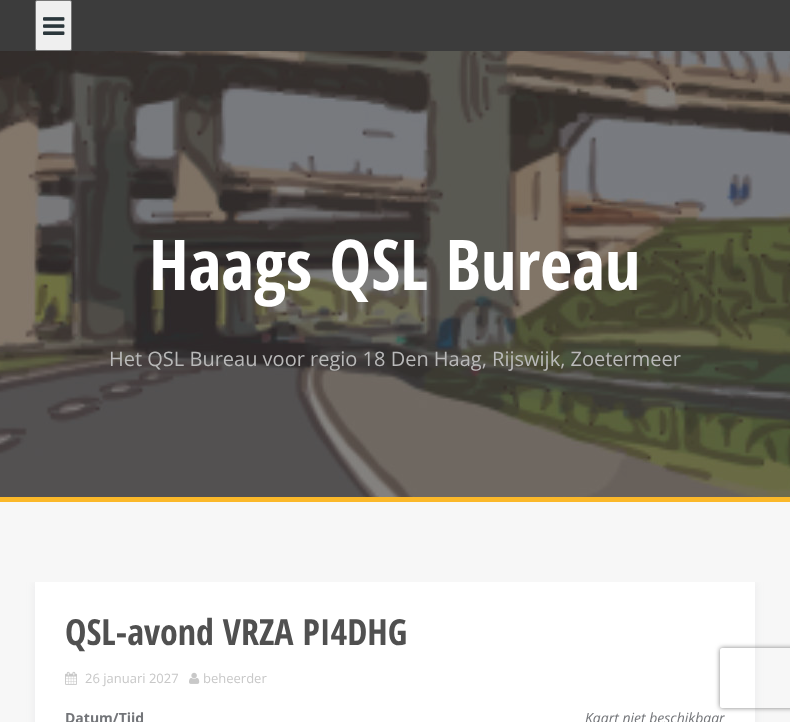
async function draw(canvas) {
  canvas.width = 790
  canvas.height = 722
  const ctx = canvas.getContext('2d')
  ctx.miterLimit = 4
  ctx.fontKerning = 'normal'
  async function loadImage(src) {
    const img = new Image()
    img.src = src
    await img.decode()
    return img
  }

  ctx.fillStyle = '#f7f7f7'
  ctx.fillRect(0, 0, 790, 722)
  ctx.fillStyle = '#3c3c3c'
  ctx.fillRect(0, 0, 790, 497)
  ctx.fillStyle = '#fbb829'
  ctx.fillRect(0, 497, 790, 5)
  ctx.fillStyle = '#efefef'
  ctx.beginPath()
  ctx.roundRect(35.5, 0.5, 36, 50, 1.5)
  ctx.fill()
  ctx.strokeStyle = '#767676'
  ctx.stroke()
  ctx.drawImage(await loadImage('image0.png'), 43, 17, 22, 18)
  ctx.drawImage(await loadImage('image1.png'), 0, 51, 790, 446)
  ctx.font = 'bold 70px Open Sans Condensed'
  ctx.fillStyle = '#fff'
  ctx.fillText('Haags QSL Bureau', 149, 290)
  ctx.font = '20px Open Sans'
  ctx.fillStyle = '#b9b9b9'
  ctx.fillText('Het QSL Bureau voor regio 18 Den Haag, Rijswijk, Zoetermeer', 109, 366)
  ctx.save()
  ctx.beginPath()
  ctx.rect(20, 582, 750, 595)
  ctx.clip()
  ctx.fillStyle = '#828e941a'
  ctx.filter = 'blur(5px)'
  ctx.beginPath()
  ctx.rect(35, 582, 720, 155)
  ctx.fill()
  ctx.filter = 'none'
  ctx.restore()
  ctx.fillStyle = '#fff'
  ctx.fillRect(35, 582, 720, 140)
  ctx.font = 'bold 36px Open Sans Condensed'
  ctx.fillStyle = '#505050'
  ctx.fillText('QSL-avond VRZA PI4DHG', 65, 645)
  ctx.drawImage(await loadImage('image2.png'), 65, 671, 12, 14)
  ctx.font = '13px Open Sans'
  ctx.fillStyle = '#c8c8c8'
  ctx.fillText('26 januari 2027', 85, 683)
  ctx.drawImage(await loadImage('image3.png'), 189, 672, 11, 12)
  ctx.fillText('beheerder', 203, 683)
  ctx.font = 'bold 14px Open Sans'
  ctx.fillStyle = '#737579'
  ctx.fillText('Datum/Tijd', 65, 723)
  ctx.font = 'italic 14px Open Sans'
  ctx.fillText('Kaart niet beschikbaar', 585, 723)
  ctx.save()
  ctx.beginPath()
  ctx.moveTo(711, 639)
  ctx.lineTo(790, 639)
  ctx.lineTo(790, 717)
  ctx.lineTo(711, 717)
  ctx.closePath()
  ctx.moveTo(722, 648)
  ctx.lineTo(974, 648)
  ctx.bezierCurveTo(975, 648, 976, 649, 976, 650)
  ctx.lineTo(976, 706)
  ctx.bezierCurveTo(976, 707, 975, 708, 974, 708)
  ctx.lineTo(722, 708)
  ctx.bezierCurveTo(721, 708, 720, 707, 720, 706)
  ctx.lineTo(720, 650)
  ctx.bezierCurveTo(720, 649, 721, 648, 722, 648)
  ctx.closePath()
  ctx.clip('evenodd')
  ctx.fillStyle = '#808080'
  ctx.filter = 'blur(2.5px)'
  ctx.beginPath()
  ctx.roundRect(720, 648, 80, 60, 2)
  ctx.fill()
  ctx.filter = 'none'
  ctx.restore()
}

draw(document.querySelector('canvas'))
